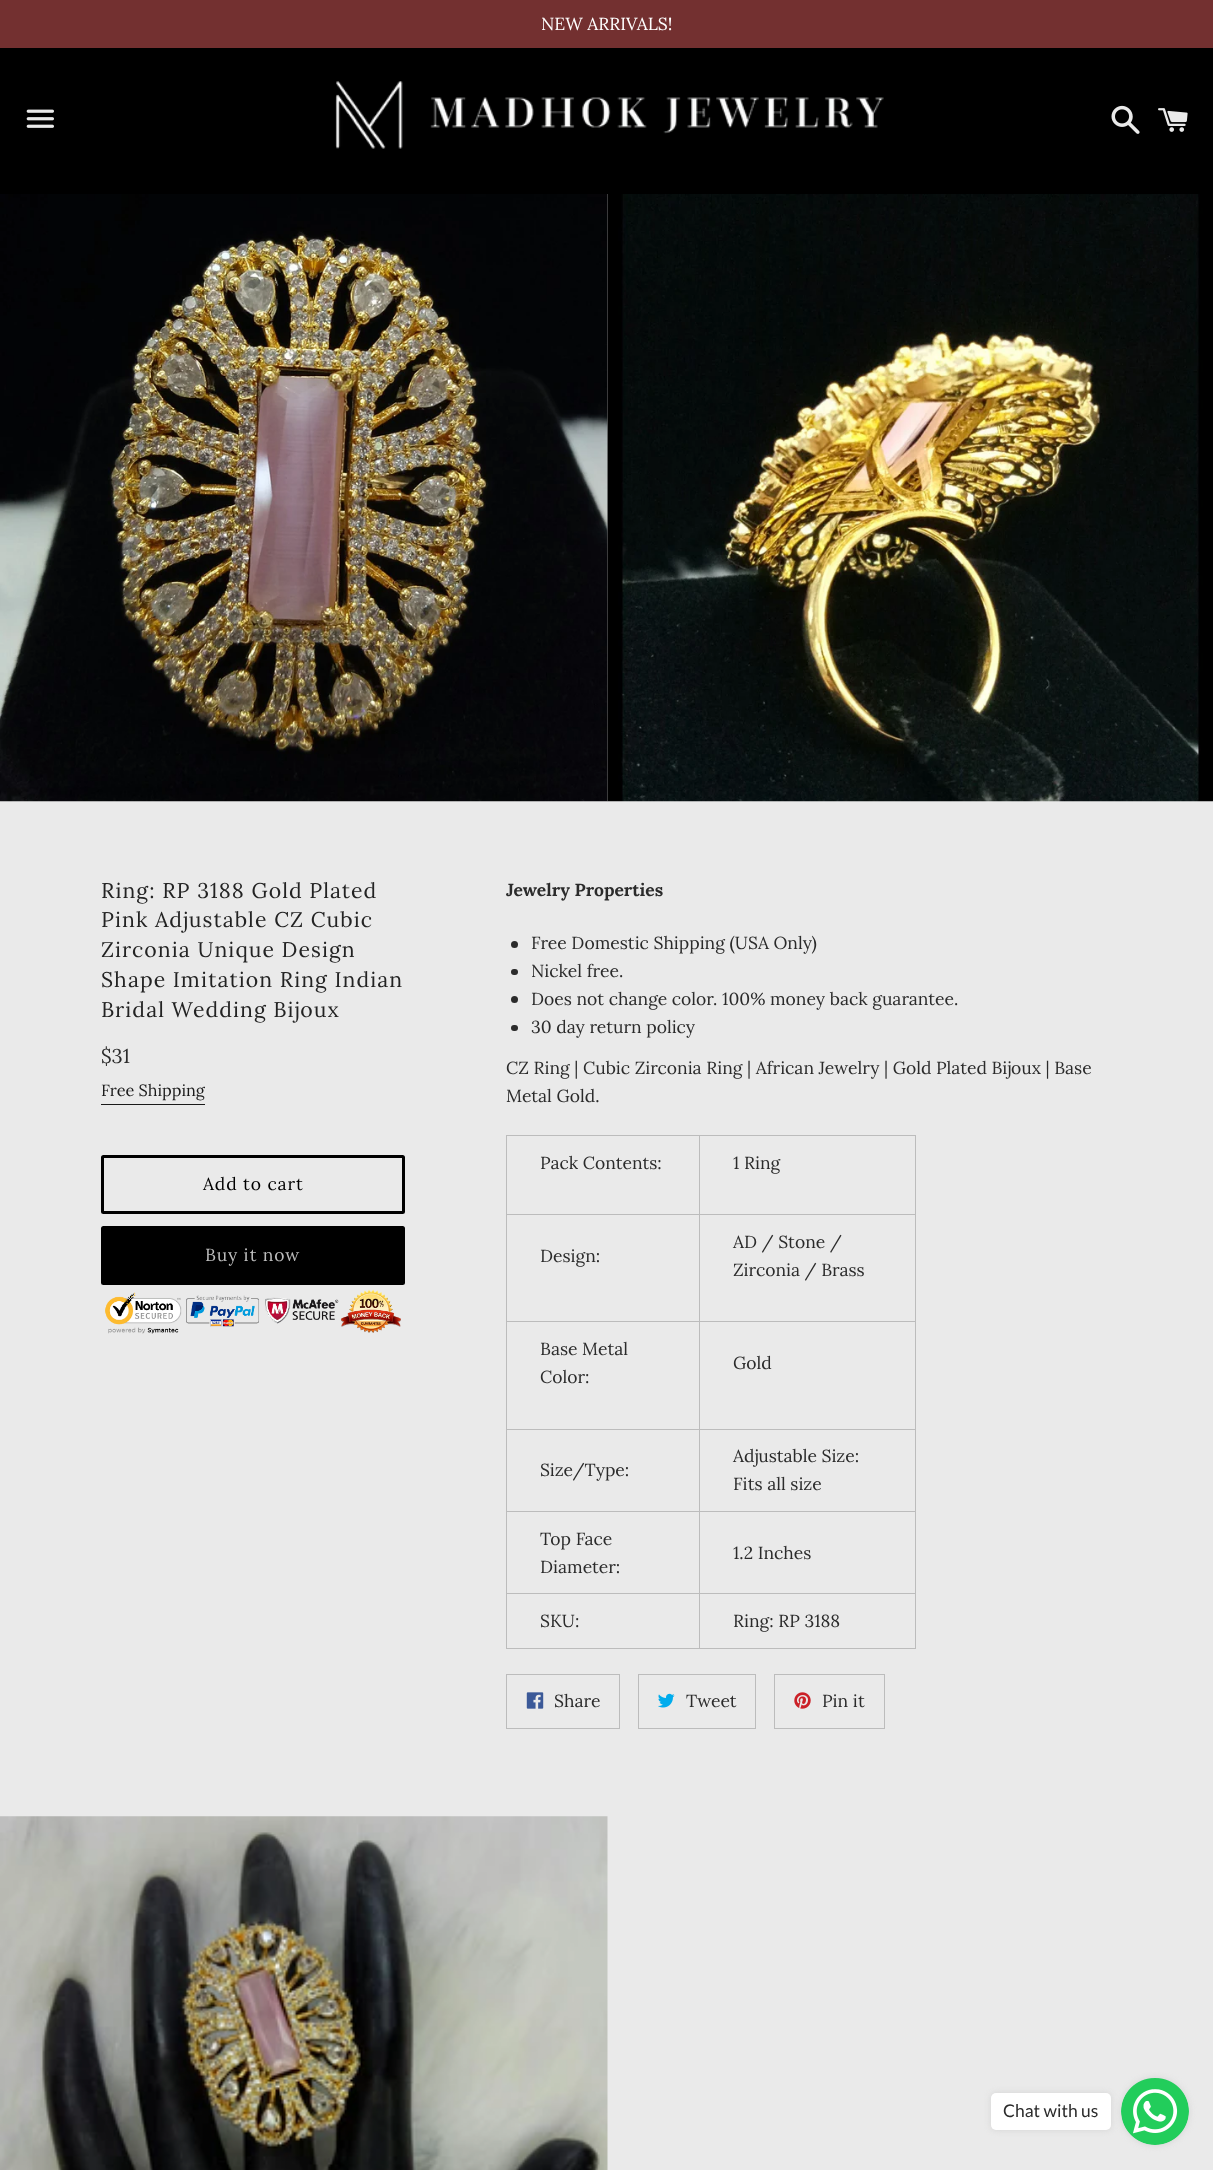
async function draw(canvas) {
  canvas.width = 1213
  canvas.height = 2170
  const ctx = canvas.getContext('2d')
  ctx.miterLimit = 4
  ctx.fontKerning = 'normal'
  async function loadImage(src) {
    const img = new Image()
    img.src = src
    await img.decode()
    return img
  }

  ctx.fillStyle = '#eaeaea'
  ctx.fillRect(0, 0, 1213, 2170)
  ctx.fillStyle = '#733030'
  ctx.fillRect(0, 0, 1213, 48)
  ctx.font = '17.5px Lora'
  ctx.fillStyle = '#fff'
  ctx.fillText('NEW ARRIVALS!', 541, 30)
  ctx.fillStyle = '#000'
  ctx.fillRect(0, 48, 1213, 146)
  ctx.drawImage(await loadImage('image0.png'), 26, 109, 28, 19)
  ctx.drawImage(await loadImage('image1.png'), 335, 81, 549, 68)
  ctx.drawImage(await loadImage('image2.png'), 1111, 105, 29, 29)
  ctx.drawImage(await loadImage('image3.png'), 1158, 108, 30, 24)
  ctx.drawImage(await loadImage('image4.png'), 0, 194, 608, 608)
  ctx.drawImage(await loadImage('image5.png'), 607, 194, 606, 608)
  ctx.letterSpacing = '1.05px'
  ctx.font = '21.25px Lora'
  ctx.fillStyle = '#232323'
  ctx.fillText('Ring: RP 3188 Gold Plated', 101, 898)
  ctx.fillText('Pink Adjustable CZ Cubic', 101, 927)
  ctx.fillText('Zirconia Unique Design', 101, 957)
  ctx.fillText('Shape Imitation Ring Indian', 101, 987)
  ctx.fillText('Bridal Wedding Bijoux', 101, 1017)
  ctx.letterSpacing = '0px'
  ctx.font = '20px Lora'
  ctx.fillStyle = '#2b2b2b'
  ctx.fillText('$31', 101, 1063)
  ctx.font = '16.25px Lora'
  ctx.fillStyle = '#1a1a1a'
  ctx.fillText('Free Shipping', 101, 1096)
  ctx.fillRect(101, 1104, 104, 1)
  ctx.beginPath()
  ctx.roundRect(102.5, 1156.5, 301, 56, 1)
  ctx.strokeStyle = '#000'
  ctx.lineWidth = 3
  ctx.stroke()
  ctx.letterSpacing = '0.9px'
  ctx.font = '17.5px Lora'
  ctx.fillStyle = '#000'
  ctx.fillText('Add to cart', 203, 1190)
  ctx.beginPath()
  ctx.roundRect(101, 1226, 304, 59, 2.5)
  ctx.fill()
  ctx.fillStyle = '#bcbcbc'
  ctx.fillText('Buy it now', 205, 1261)
  ctx.drawImage(await loadImage('image6.png'), 105, 1289, 296, 45)
  ctx.letterSpacing = '0px'
  ctx.font = 'bold 17.5px Lora'
  ctx.fillStyle = '#2b2b2b'
  ctx.fillText('Jewelry Properties', 506, 896)
  ctx.beginPath()
  ctx.arc(514.5, 944.5, 3.5, 0, 2 * Math.PI)
  ctx.fill()
  ctx.font = '17.5px Lora'
  ctx.fillText('Free Domestic Shipping (USA Only)', 531, 949)
  ctx.beginPath()
  ctx.roundRect(511, 969, 7, 6, 3)
  ctx.fill()
  ctx.fillText('Nickel free.', 531, 977)
  ctx.beginPath()
  ctx.arc(514.5, 999.5, 3.5, 0, 2 * Math.PI)
  ctx.fill()
  ctx.fillText('Does not change color. 100% money back guarantee.', 531, 1005)
  ctx.beginPath()
  ctx.roundRect(511, 1025, 7, 6, 3)
  ctx.fill()
  ctx.fillText('30 day return policy', 531, 1033)
  ctx.fillText('CZ Ring | Cubic Zirconia Ring | African Jewelry | Gold Plated Bijoux | Base', 506, 1074)
  ctx.fillText('Metal Gold.', 506, 1102)
  ctx.fillStyle = '#bcbcbc'
  ctx.fillRect(699, 1135, 217, 1)
  ctx.fillRect(699, 1214, 217, 1)
  ctx.fillRect(699, 1321, 217, 1)
  ctx.fillRect(699, 1429, 217, 1)
  ctx.fillRect(699, 1511, 217, 1)
  ctx.fillRect(699, 1593, 217, 1)
  ctx.fillRect(915, 1593, 1, 56)
  ctx.fillRect(699, 1648, 217, 1)
  ctx.fillRect(699, 1593, 1, 56)
  ctx.fillRect(506, 1593, 194, 1)
  ctx.fillRect(699, 1511, 1, 83)
  ctx.fillRect(506, 1511, 194, 1)
  ctx.fillRect(699, 1429, 1, 84)
  ctx.fillRect(506, 1429, 194, 1)
  ctx.fillRect(699, 1321, 1, 109)
  ctx.fillRect(506, 1321, 194, 1)
  ctx.fillRect(699, 1214, 1, 109)
  ctx.fillRect(506, 1214, 194, 1)
  ctx.fillRect(699, 1135, 1, 80)
  ctx.fillRect(506, 1135, 194, 1)
  ctx.fillRect(506, 1648, 194, 1)
  ctx.fillRect(506, 1593, 1, 56)
  ctx.fillRect(506, 1511, 1, 83)
  ctx.fillRect(506, 1429, 1, 84)
  ctx.fillRect(506, 1321, 1, 109)
  ctx.fillRect(506, 1214, 1, 109)
  ctx.fillRect(506, 1135, 1, 80)
  ctx.fillStyle = '#2b2b2b'
  ctx.fillText('Pack Contents:', 540, 1169)
  ctx.fillStyle = '#bcbcbc'
  ctx.fillRect(915, 1511, 1, 83)
  ctx.fillRect(915, 1429, 1, 84)
  ctx.fillRect(915, 1321, 1, 109)
  ctx.fillRect(915, 1214, 1, 109)
  ctx.fillRect(915, 1135, 1, 80)
  ctx.fillStyle = '#2b2b2b'
  ctx.fillText('1 Ring', 733, 1169)
  ctx.fillText('Design:', 540, 1262)
  ctx.fillText('AD / Stone /', 733, 1248)
  ctx.fillText('Zirconia / Brass', 733, 1276)
  ctx.fillText('Base Metal', 540, 1355)
  ctx.fillText('Color:', 540, 1383)
  ctx.fillText('Gold', 733, 1369)
  ctx.fillText('Size/Type:', 540, 1476)
  ctx.fillText('Adjustable Size:', 733, 1462)
  ctx.fillText('Fits all size', 733, 1490)
  ctx.fillText('Top Face', 540, 1545)
  ctx.fillText('Diameter:', 540, 1573)
  ctx.fillText('1.2 Inches', 733, 1559)
  ctx.fillText('SKU:', 540, 1627)
  ctx.fillText('Ring: RP 3188', 733, 1627)
  ctx.strokeStyle = '#bcbcbc'
  ctx.lineWidth = 1
  ctx.strokeRect(506.5, 1674.5, 113, 54)
  ctx.drawImage(await loadImage('image7.png'), 526, 1692, 18, 17)
  ctx.fillText('Share', 554, 1707)
  ctx.strokeRect(638.5, 1674.5, 117, 54)
  ctx.drawImage(await loadImage('image8.png'), 658, 1693, 17, 15)
  ctx.fillText('Tweet', 686, 1707)
  ctx.strokeRect(774.5, 1674.5, 110, 54)
  ctx.drawImage(await loadImage('image9.png'), 794, 1692, 17, 17)
  ctx.fillText('Pin it', 822, 1707)
  ctx.drawImage(await loadImage('image10.png'), 0, 1816, 608, 354)
  ctx.fillStyle = '#d3d3d3'
  ctx.filter = 'blur(3px)'
  ctx.beginPath()
  ctx.roundRect(1121, 2078, 68, 67, 33.5)
  ctx.fill()
  ctx.filter = 'none'
  ctx.filter = 'blur(3px)'
  ctx.beginPath()
  ctx.roundRect(991, 2093, 120, 37, 5)
  ctx.fill()
  ctx.filter = 'none'
  ctx.fillStyle = '#fff'
  ctx.beginPath()
  ctx.roundRect(991, 2093, 120, 37, 5)
  ctx.fill()
  ctx.font = '17.5px Lato'
  ctx.fillStyle = '#2b2b2b'
  ctx.fillText('Chat with us', 1003, 2117)
  ctx.drawImage(await loadImage('image11.png'), 1121, 2078, 68, 67)
}

draw(document.querySelector('canvas'))
